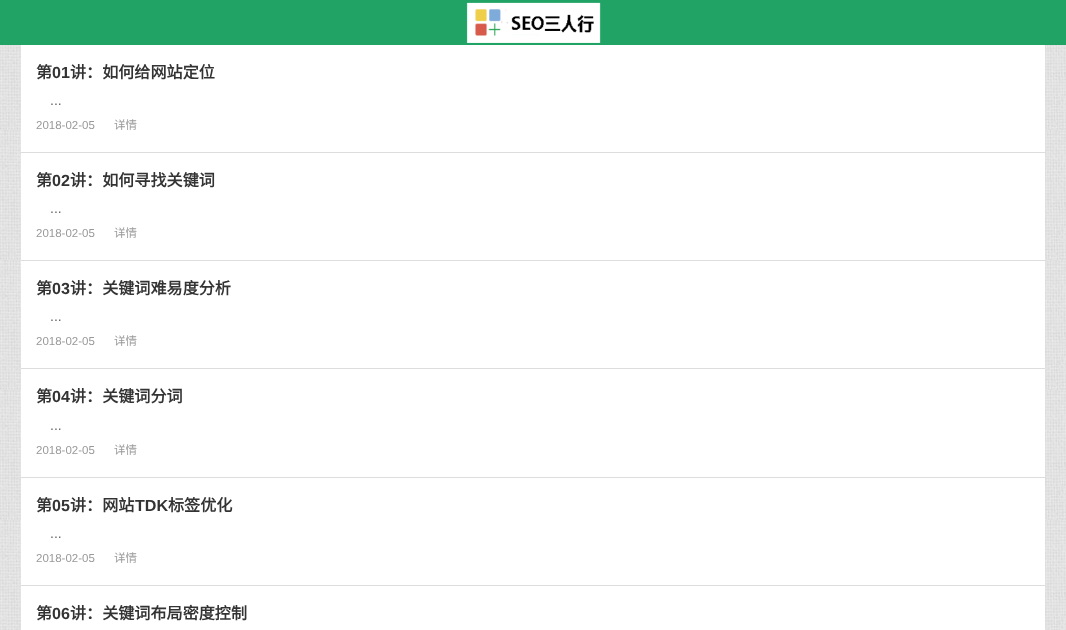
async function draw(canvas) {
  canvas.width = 1066
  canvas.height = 630
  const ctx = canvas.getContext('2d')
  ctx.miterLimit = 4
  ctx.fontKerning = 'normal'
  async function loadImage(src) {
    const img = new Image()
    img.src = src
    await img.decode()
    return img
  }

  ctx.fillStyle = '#fff'
  ctx.fillRect(0, 0, 1066, 630)
  ctx.drawImage(await loadImage('image0.png'), 0, 45, 1066, 585)
  ctx.fillStyle = '#21a366'
  ctx.fillRect(0, 0, 1066, 45)
  ctx.drawImage(await loadImage('image1.png'), 466, 2, 135, 41)
  ctx.fillStyle = '#fff'
  ctx.fillRect(21, 45, 1024, 585)
  ctx.fillStyle = '#ddd'
  ctx.fillRect(21, 152, 1024, 1)
  ctx.font = 'bold 16.1px Noto Sans CJK SC'
  ctx.fillStyle = '#333'
  ctx.fillText('第', 36, 78)
  ctx.font = 'bold 16.1px Liberation Sans'
  ctx.fillText('01', 52, 78)
  ctx.font = 'bold 16.1px Noto Sans CJK SC'
  ctx.fillText('讲：如何给网站定位', 70, 78)
  ctx.font = '14px Liberation Sans'
  ctx.fillStyle = '#666'
  ctx.fillText('...', 50, 105)
  ctx.font = '11.5px Liberation Sans'
  ctx.fillStyle = '#999'
  ctx.fillText('2018-02-05', 36, 129)
  ctx.font = '11.5px Noto Sans CJK SC'
  ctx.fillText('详情', 114, 129)
  ctx.fillStyle = '#ddd'
  ctx.fillRect(21, 260, 1024, 1)
  ctx.font = 'bold 16.1px Noto Sans CJK SC'
  ctx.fillStyle = '#333'
  ctx.fillText('第', 36, 186)
  ctx.font = 'bold 16.1px Liberation Sans'
  ctx.fillText('02', 52, 186)
  ctx.font = 'bold 16.1px Noto Sans CJK SC'
  ctx.fillText('讲：如何寻找关键词', 70, 186)
  ctx.font = '14px Liberation Sans'
  ctx.fillStyle = '#666'
  ctx.fillText('...', 50, 213)
  ctx.font = '11.5px Liberation Sans'
  ctx.fillStyle = '#999'
  ctx.fillText('2018-02-05', 36, 237)
  ctx.font = '11.5px Noto Sans CJK SC'
  ctx.fillText('详情', 114, 237)
  ctx.fillStyle = '#ddd'
  ctx.fillRect(21, 368, 1024, 1)
  ctx.font = 'bold 16.1px Noto Sans CJK SC'
  ctx.fillStyle = '#333'
  ctx.fillText('第', 36, 294)
  ctx.font = 'bold 16.1px Liberation Sans'
  ctx.fillText('03', 52, 294)
  ctx.font = 'bold 16.1px Noto Sans CJK SC'
  ctx.fillText('讲：关键词难易度分析', 70, 294)
  ctx.font = '14px Liberation Sans'
  ctx.fillStyle = '#666'
  ctx.fillText('...', 50, 321)
  ctx.font = '11.5px Liberation Sans'
  ctx.fillStyle = '#999'
  ctx.fillText('2018-02-05', 36, 345)
  ctx.font = '11.5px Noto Sans CJK SC'
  ctx.fillText('详情', 114, 345)
  ctx.fillStyle = '#ddd'
  ctx.fillRect(21, 477, 1024, 1)
  ctx.font = 'bold 16.1px Noto Sans CJK SC'
  ctx.fillStyle = '#333'
  ctx.fillText('第', 36, 402)
  ctx.font = 'bold 16.1px Liberation Sans'
  ctx.fillText('04', 52, 402)
  ctx.font = 'bold 16.1px Noto Sans CJK SC'
  ctx.fillText('讲：关键词分词', 70, 402)
  ctx.font = '14px Liberation Sans'
  ctx.fillStyle = '#666'
  ctx.fillText('...', 50, 430)
  ctx.font = '11.5px Liberation Sans'
  ctx.fillStyle = '#999'
  ctx.fillText('2018-02-05', 36, 454)
  ctx.font = '11.5px Noto Sans CJK SC'
  ctx.fillText('详情', 114, 454)
  ctx.fillStyle = '#ddd'
  ctx.fillRect(21, 585, 1024, 1)
  ctx.font = 'bold 16.1px Noto Sans CJK SC'
  ctx.fillStyle = '#333'
  ctx.fillText('第', 36, 511)
  ctx.font = 'bold 16.1px Liberation Sans'
  ctx.fillText('05', 52, 511)
  ctx.font = 'bold 16.1px Noto Sans CJK SC'
  ctx.fillText('讲：网站', 70, 511)
  ctx.font = 'bold 16.1px Liberation Sans'
  ctx.fillText('TDK', 135, 511)
  ctx.font = 'bold 16.1px Noto Sans CJK SC'
  ctx.fillText('标签优化', 168, 511)
  ctx.font = '14px Liberation Sans'
  ctx.fillStyle = '#666'
  ctx.fillText('...', 50, 538)
  ctx.font = '11.5px Liberation Sans'
  ctx.fillStyle = '#999'
  ctx.fillText('2018-02-05', 36, 562)
  ctx.font = '11.5px Noto Sans CJK SC'
  ctx.fillText('详情', 114, 562)
  ctx.font = 'bold 16.1px Noto Sans CJK SC'
  ctx.fillStyle = '#333'
  ctx.fillText('第', 36, 619)
  ctx.font = 'bold 16.1px Liberation Sans'
  ctx.fillText('06', 52, 619)
  ctx.font = 'bold 16.1px Noto Sans CJK SC'
  ctx.fillText('讲：关键词布局密度控制', 70, 619)
}

draw(document.querySelector('canvas'))
